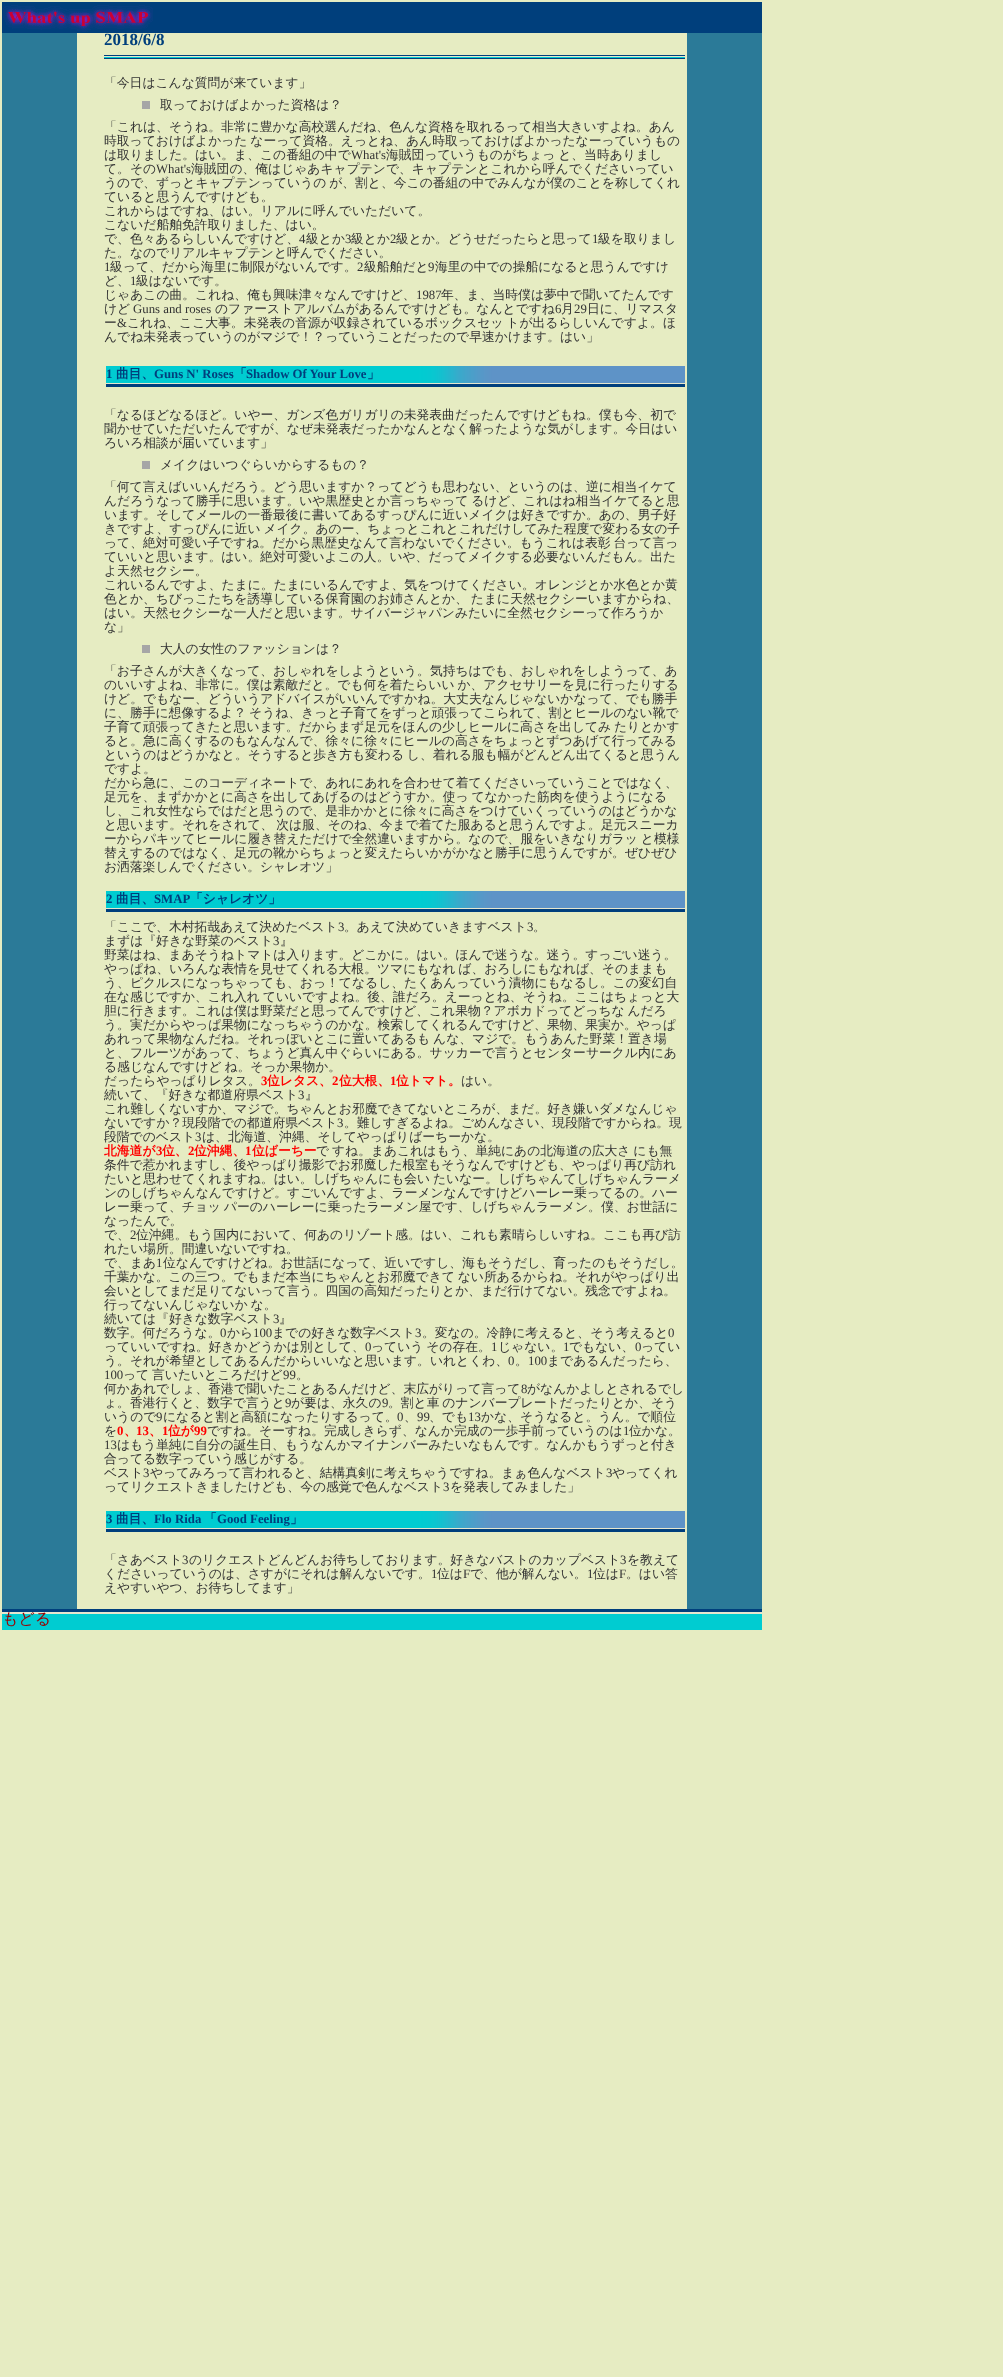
async function draw(canvas) {
  canvas.width = 1003
  canvas.height = 2377
  const ctx = canvas.getContext('2d')
  ctx.miterLimit = 4
  ctx.fontKerning = 'normal'
  async function loadImage(src) {
    const img = new Image()
    img.src = src
    await img.decode()
    return img
  }

  ctx.fillStyle = '#e6ecc2'
  ctx.fillRect(0, 0, 1003, 2377)
  ctx.fillStyle = '#003f7c'
  ctx.fillRect(2, 2, 760, 31)
  ctx.drawImage(await loadImage('image0.png'), 3, 5, 150, 27)
  ctx.fillStyle = '#2b7a98'
  ctx.fillRect(2, 33, 760, 1576)
  ctx.fillStyle = '#e6ecc2'
  ctx.fillRect(77, 33, 610, 1576)
  ctx.font = 'bold 17px Liberation Serif'
  ctx.fillStyle = '#003f7c'
  ctx.fillText('2018/6/8', 104, 45)
  ctx.drawImage(await loadImage('image1.png'), 104, 55, 581, 4)
  ctx.font = '500 12.8px WenQuanYi Zen Hei'
  ctx.fillStyle = '#333'
  ctx.fillText('「今日はこんな質問が来ています」', 104, 87)
  ctx.fillStyle = '#a6a6a6'
  ctx.fillRect(142, 101, 8, 8)
  ctx.fillStyle = '#333'
  ctx.fillText('取っておけばよかった資格は？', 160, 109)
  ctx.fillText('「これは、そうね。非常に豊かな高校選んだね、色んな資格を取れるって相当大きいすよね。あん', 104, 131)
  ctx.wordSpacing = '-1px'
  ctx.fillText('時取っておけばよかった なーって資格。えっとね、あん時取っておけばよかったなーっていうもの', 104, 145)
  ctx.wordSpacing = '0px'
  ctx.fillText('は取りました。はい。ま、この番組の中で', 104, 159)
  ctx.font = '12.8px Liberation Serif'
  ctx.fillText('What\'s', 351, 159)
  ctx.wordSpacing = '-1px'
  ctx.font = '500 12.8px WenQuanYi Zen Hei'
  ctx.fillText('海賊団っていうものがちょっ と、当時ありまし', 386, 159)
  ctx.wordSpacing = '0px'
  ctx.fillText('て。その', 104, 173)
  ctx.font = '12.8px Liberation Serif'
  ctx.fillText('What\'s', 156, 173)
  ctx.font = '500 12.8px WenQuanYi Zen Hei'
  ctx.fillText('海賊団の、俺はじゃあキャプテンで、キャプテンとこれから呼んでくださいってい', 191, 173)
  ctx.wordSpacing = '-1px'
  ctx.fillText('うので、ずっとキャプテンっていうの が、割と、今この番組の中でみんなが僕のことを称してくれ', 104, 187)
  ctx.wordSpacing = '0px'
  ctx.fillText('ていると思うんですけども。', 104, 201)
  ctx.fillText('これからはですね、はい。リアルに呼んでいただいて。', 104, 215)
  ctx.fillText('こないだ船舶免許取りました、はい。', 104, 229)
  ctx.fillText('で、色々あるらしいんですけど、', 104, 243)
  ctx.font = '12.8px Liberation Serif'
  ctx.fillText('4', 299, 243)
  ctx.font = '500 12.8px WenQuanYi Zen Hei'
  ctx.fillText('級とか', 306, 243)
  ctx.font = '12.8px Liberation Serif'
  ctx.fillText('3', 345, 243)
  ctx.font = '500 12.8px WenQuanYi Zen Hei'
  ctx.fillText('級とか', 351, 243)
  ctx.font = '12.8px Liberation Serif'
  ctx.fillText('2', 390, 243)
  ctx.font = '500 12.8px WenQuanYi Zen Hei'
  ctx.fillText('級とか。どうせだったらと思って', 396, 243)
  ctx.font = '12.8px Liberation Serif'
  ctx.fillText('1', 592, 243)
  ctx.font = '500 12.8px WenQuanYi Zen Hei'
  ctx.fillText('級を取りまし', 598, 243)
  ctx.fillText('た。なのでリアルキャプテンと呼んでください。', 104, 257)
  ctx.font = '12.8px Liberation Serif'
  ctx.fillText('1', 104, 271)
  ctx.font = '500 12.8px WenQuanYi Zen Hei'
  ctx.fillText('級って、だから海里に制限がないんです。', 110, 271)
  ctx.font = '12.8px Liberation Serif'
  ctx.fillText('2', 357, 271)
  ctx.font = '500 12.8px WenQuanYi Zen Hei'
  ctx.fillText('級船舶だと', 364, 271)
  ctx.font = '12.8px Liberation Serif'
  ctx.fillText('9', 428, 271)
  ctx.font = '500 12.8px WenQuanYi Zen Hei'
  ctx.fillText('海里の中での操船になると思うんですけ', 435, 271)
  ctx.fillText('ど、', 104, 285)
  ctx.font = '12.8px Liberation Serif'
  ctx.fillText('1', 130, 285)
  ctx.font = '500 12.8px WenQuanYi Zen Hei'
  ctx.fillText('級はないです。', 136, 285)
  ctx.fillText('じゃあこの曲。これね、俺も興味津々なんですけど、', 104, 299)
  ctx.font = '12.8px Liberation Serif'
  ctx.fillText('1987', 416, 299)
  ctx.font = '500 12.8px WenQuanYi Zen Hei'
  ctx.fillText('年、ま、当時僕は夢中で聞いてたんです', 441, 299)
  ctx.fillText('けど', 104, 313)
  ctx.font = '12.8px Liberation Serif'
  ctx.fillText('Guns and roses', 133, 313)
  ctx.font = '500 12.8px WenQuanYi Zen Hei'
  ctx.fillText('のファーストアルバムがあるんですけども。なんとですね', 215, 313)
  ctx.font = '12.8px Liberation Serif'
  ctx.fillText('6', 555, 313)
  ctx.font = '500 12.8px WenQuanYi Zen Hei'
  ctx.fillText('月', 561, 313)
  ctx.font = '12.8px Liberation Serif'
  ctx.fillText('29', 574, 313)
  ctx.font = '500 12.8px WenQuanYi Zen Hei'
  ctx.fillText('日に、リマスタ', 587, 313)
  ctx.fillText('ー', 104, 327)
  ctx.font = '12.8px Liberation Serif'
  ctx.fillText('&', 117, 327)
  ctx.wordSpacing = '-1px'
  ctx.font = '500 12.8px WenQuanYi Zen Hei'
  ctx.fillText('これね、ここ大事。未発表の音源が収録されているボックスセッ トが出るらしいんですよ。ほ', 127, 327)
  ctx.wordSpacing = '0px'
  ctx.fillText('んでね未発表っていうのがマジで！？っていうことだったので早速かけます。はい」', 104, 341)
  ctx.drawImage(await loadImage('image2.png'), 106, 366, 579, 21)
  ctx.font = 'bold 12.8px Liberation Serif'
  ctx.fillStyle = '#003f7c'
  ctx.fillText('1', 106, 378)
  ctx.font = 'bold 12.8px WenQuanYi Zen Hei'
  ctx.fillText('曲目、', 116, 378)
  ctx.font = 'bold 12.8px Liberation Serif'
  ctx.fillText('Guns N\' Roses', 154, 378)
  ctx.font = 'bold 12.8px WenQuanYi Zen Hei'
  ctx.fillText('「', 234, 378)
  ctx.font = 'bold 12.8px Liberation Serif'
  ctx.fillText('Shadow Of Your Love', 246, 378)
  ctx.font = 'bold 12.8px WenQuanYi Zen Hei'
  ctx.fillText('」', 367, 378)
  ctx.font = '500 12.8px WenQuanYi Zen Hei'
  ctx.fillStyle = '#333'
  ctx.fillText('「なるほどなるほど。いやー、ガンズ色ガリガリの未発表曲だったんですけどもね。僕も今、初で', 104, 419)
  ctx.fillText('聞かせていただいたんですが、なぜ未発表だったかなんとなく解ったような気がします。今日はい', 104, 433)
  ctx.fillText('ろいろ相談が届いています」', 104, 447)
  ctx.fillStyle = '#a6a6a6'
  ctx.fillRect(142, 461, 8, 8)
  ctx.fillStyle = '#333'
  ctx.fillText('メイクはいつぐらいからするもの？', 160, 469)
  ctx.fillText('「何て言えばいいんだろう。どう思いますか？ってどうも思わない、というのは、逆に相当イケて', 104, 491)
  ctx.wordSpacing = '-1px'
  ctx.fillText('んだろうなって勝手に思います。いや黒歴史とか言っちゃって るけど、これはね相当イケてると思', 104, 505)
  ctx.wordSpacing = '0px'
  ctx.fillText('います。そしてメールの一番最後に書いてあるすっぴんに近いメイクは好きですか。あの、男子好', 104, 519)
  ctx.wordSpacing = '-1px'
  ctx.fillText('きですよ、すっぴんに近い メイク。あのー、ちょっとこれとこれだけしてみた程度で変わる女の子', 104, 533)
  ctx.fillText('って、絶対可愛い子ですね。だから黒歴史なんて言わないでください。もうこれは表彰 台って言っ', 104, 547)
  ctx.wordSpacing = '0px'
  ctx.fillText('ていいと思います。はい。絶対可愛いよこの人。いや、だってメイクする必要ないんだもん。出た', 104, 561)
  ctx.fillText('よ天然セクシー。', 104, 575)
  ctx.fillText('これいるんですよ、たまに。たまにいるんですよ、気をつけてください。オレンジとか水色とか黄', 104, 589)
  ctx.wordSpacing = '-1px'
  ctx.fillText('色とか、ちびっこたちを誘導している保育園のお姉さんとか、 たまに天然セクシーいますからね、', 104, 603)
  ctx.wordSpacing = '0px'
  ctx.fillText('はい。天然セクシーな一人だと思います。サイバージャパンみたいに全然セクシーって作ろうか', 104, 617)
  ctx.fillText('な」', 104, 631)
  ctx.fillStyle = '#a6a6a6'
  ctx.fillRect(142, 645, 8, 8)
  ctx.fillStyle = '#333'
  ctx.fillText('大人の女性のファッションは？', 160, 653)
  ctx.fillText('「お子さんが大きくなって、おしゃれをしようという。気持ちはでも、おしゃれをしようって、あ', 104, 675)
  ctx.wordSpacing = '-1px'
  ctx.fillText('のいいすよね、非常に。僕は素敵だと。でも何を着たらいい か、アクセサリーを見に行ったりする', 104, 689)
  ctx.wordSpacing = '0px'
  ctx.fillText('けど。でもなー、どういうアドバイスがいいんですかね。大丈夫なんじゃないかなって、でも勝手', 104, 703)
  ctx.wordSpacing = '-1px'
  ctx.fillText('に、勝手に想像するよ？ そうね、きっと子育てをずっと頑張ってこられて、割とヒールのない靴で', 104, 717)
  ctx.fillText('子育て頑張ってきたと思います。だからまず足元をほんの少しヒールに高さを出してみ たりとかす', 104, 731)
  ctx.wordSpacing = '0px'
  ctx.fillText('ると。急に高くするのもなんなんで、徐々に徐々にヒールの高さをちょっとずつあげて行ってみる', 104, 745)
  ctx.wordSpacing = '-1px'
  ctx.fillText('というのはどうかなと。そうすると歩き方も変わる し、着れる服も幅がどんどん出てくると思うん', 104, 759)
  ctx.wordSpacing = '0px'
  ctx.fillText('ですよ。', 104, 773)
  ctx.fillText('だから急に、このコーディネートで、あれにあれを合わせて着てくださいっていうことではなく、', 104, 787)
  ctx.wordSpacing = '-1px'
  ctx.fillText('足元を、まずかかとに高さを出してあげるのはどうすか。使っ てなかった筋肉を使うようになる', 104, 801)
  ctx.wordSpacing = '0px'
  ctx.fillText('し、これ女性ならではだと思うので、是非かかとに徐々に高さをつけていくっていうのはどうかな', 104, 815)
  ctx.wordSpacing = '-1px'
  ctx.fillText('と思います。それをされて、 次は服、そのね、今まで着てた服あると思うんですよ。足元スニーカ', 104, 829)
  ctx.fillText('ーからパキッてヒールに履き替えただけで全然違いますから。なので、服をいきなりガラッ と模様', 104, 843)
  ctx.wordSpacing = '0px'
  ctx.fillText('替えするのではなく、足元の靴からちょっと変えたらいかがかなと勝手に思うんですが。ぜひぜひ', 104, 857)
  ctx.fillText('お洒落楽しんでください。シャレオツ」', 104, 871)
  ctx.drawImage(await loadImage('image2.png'), 106, 891, 579, 21)
  ctx.font = 'bold 12.8px Liberation Serif'
  ctx.fillStyle = '#003f7c'
  ctx.fillText('2', 106, 903)
  ctx.font = 'bold 12.8px WenQuanYi Zen Hei'
  ctx.fillText('曲目、', 116, 903)
  ctx.font = 'bold 12.8px Liberation Serif'
  ctx.fillText('SMAP', 154, 903)
  ctx.font = 'bold 12.8px WenQuanYi Zen Hei'
  ctx.fillText('「シャレオツ」', 190, 903)
  ctx.font = '500 12.8px WenQuanYi Zen Hei'
  ctx.fillStyle = '#333'
  ctx.fillText('「ここで、木村拓哉あえて決めたベスト', 104, 931)
  ctx.font = '12.8px Liberation Serif'
  ctx.fillText('3', 338, 931)
  ctx.font = '500 12.8px WenQuanYi Zen Hei'
  ctx.fillText('。あえて決めていきますベスト', 344, 931)
  ctx.font = '12.8px Liberation Serif'
  ctx.fillText('3', 527, 931)
  ctx.font = '500 12.8px WenQuanYi Zen Hei'
  ctx.fillText('。', 533, 931)
  ctx.fillText('まずは『好きな野菜のベスト', 104, 945)
  ctx.font = '12.8px Liberation Serif'
  ctx.fillText('3', 273, 945)
  ctx.font = '500 12.8px WenQuanYi Zen Hei'
  ctx.fillText('』', 280, 945)
  ctx.fillText('野菜はね、まあそうねトマトは入ります。どこかに。はい。ほんで迷うな。迷う。すっごい迷う。', 104, 959)
  ctx.wordSpacing = '-1px'
  ctx.fillText('やっぱね、いろんな表情を見せてくれる大根。ツマにもなれ ば、おろしにもなれば、そのままも', 104, 973)
  ctx.wordSpacing = '0px'
  ctx.fillText('う、ピクルスになっちゃっても、おっ！てなるし、たくあんっていう漬物にもなるし。この変幻自', 104, 987)
  ctx.wordSpacing = '-1px'
  ctx.fillText('在な感じですか、これ入れ ていいですよね。後、誰だろ。えーっとね、そうね。ここはちょっと大', 104, 1001)
  ctx.fillText('胆に行きます。これは僕は野菜だと思ってんですけど、これ果物？アボカドってどっちな んだろ', 104, 1015)
  ctx.wordSpacing = '0px'
  ctx.fillText('う。実だからやっぱ果物になっちゃうのかな。検索してくれるんですけど、果物、果実か。やっぱ', 104, 1029)
  ctx.wordSpacing = '-1px'
  ctx.fillText('あれって果物なんだね。それっぽいとこに置いてあるも んな、マジで。もうあんた野菜！置き場', 104, 1043)
  ctx.wordSpacing = '0px'
  ctx.fillText('と、フルーツがあって、ちょうど真ん中ぐらいにある。サッカーで言うとセンターサークル内にあ', 104, 1057)
  ctx.wordSpacing = '-1px'
  ctx.fillText('る感じなんですけど ね。そっか果物か。', 104, 1071)
  ctx.wordSpacing = '0px'
  ctx.fillText('だったらやっぱりレタス。', 104, 1085)
  ctx.font = 'bold 12.8px Liberation Serif'
  ctx.fillStyle = '#f00'
  ctx.fillText('3', 261, 1085)
  ctx.font = 'bold 12.8px WenQuanYi Zen Hei'
  ctx.fillText('位レタス、', 267, 1085)
  ctx.font = 'bold 12.8px Liberation Serif'
  ctx.fillText('2', 332, 1085)
  ctx.font = 'bold 12.8px WenQuanYi Zen Hei'
  ctx.fillText('位大根、', 339, 1085)
  ctx.font = 'bold 12.8px Liberation Serif'
  ctx.fillText('1', 390, 1085)
  ctx.font = 'bold 12.8px WenQuanYi Zen Hei'
  ctx.fillText('位トマト。', 396, 1085)
  ctx.font = '500 12.8px WenQuanYi Zen Hei'
  ctx.fillStyle = '#333'
  ctx.fillText('はい。', 461, 1085)
  ctx.fillText('続いて、『好きな都道府県ベスト', 104, 1099)
  ctx.font = '12.8px Liberation Serif'
  ctx.fillText('3', 298, 1099)
  ctx.font = '500 12.8px WenQuanYi Zen Hei'
  ctx.fillText('』', 305, 1099)
  ctx.fillText('これ難しくないすか、マジで。ちゃんとお邪魔できてないところが、まだ。好き嫌いダメなんじゃ', 104, 1113)
  ctx.fillText('ないですか？現段階での都道府県ベスト', 104, 1127)
  ctx.font = '12.8px Liberation Serif'
  ctx.fillText('3', 337, 1127)
  ctx.font = '500 12.8px WenQuanYi Zen Hei'
  ctx.fillText('。難しすぎるよね。ごめんなさい、現段階ですからね。現', 344, 1127)
  ctx.fillText('段階でのベスト', 104, 1141)
  ctx.font = '12.8px Liberation Serif'
  ctx.fillText('3', 195, 1141)
  ctx.font = '500 12.8px WenQuanYi Zen Hei'
  ctx.fillText('は、北海道、沖縄、そしてやっぱりばーちーかな。', 202, 1141)
  ctx.font = 'bold 12.8px WenQuanYi Zen Hei'
  ctx.fillStyle = '#f00'
  ctx.fillText('北海道が', 104, 1155)
  ctx.font = 'bold 12.8px Liberation Serif'
  ctx.fillText('3', 156, 1155)
  ctx.font = 'bold 12.8px WenQuanYi Zen Hei'
  ctx.fillText('位、', 162, 1155)
  ctx.font = 'bold 12.8px Liberation Serif'
  ctx.fillText('2', 188, 1155)
  ctx.font = 'bold 12.8px WenQuanYi Zen Hei'
  ctx.fillText('位沖縄、', 194, 1155)
  ctx.font = 'bold 12.8px Liberation Serif'
  ctx.fillText('1', 245, 1155)
  ctx.font = 'bold 12.8px WenQuanYi Zen Hei'
  ctx.fillText('位ばーちー', 252, 1155)
  ctx.wordSpacing = '-1px'
  ctx.font = '500 12.8px WenQuanYi Zen Hei'
  ctx.fillStyle = '#333'
  ctx.fillText('で すね。まあこれはもう、単純にあの北海道の広大さ にも無', 316, 1155)
  ctx.wordSpacing = '0px'
  ctx.fillText('条件で惹かれますし、後やっぱり撮影でお邪魔した根室もそうなんですけども、やっぱり再び訪れ', 104, 1169)
  ctx.wordSpacing = '-1px'
  ctx.fillText('たいと思わせてくれますね。はい。しげちゃんにも会い たいなー。しげちゃんてしげちゃんラーメ', 104, 1183)
  ctx.wordSpacing = '0px'
  ctx.fillText('ンのしげちゃんなんですけど。すごいんですよ、ラーメンなんですけどハーレー乗ってるの。ハー', 104, 1197)
  ctx.wordSpacing = '-1px'
  ctx.fillText('レー乗って、チョッ パーのハーレーに乗ったラーメン屋です、しげちゃんラーメン。僕、お世話に', 104, 1211)
  ctx.wordSpacing = '0px'
  ctx.fillText('なったんで。', 104, 1225)
  ctx.fillText('で、', 104, 1239)
  ctx.font = '12.8px Liberation Serif'
  ctx.fillText('2', 130, 1239)
  ctx.font = '500 12.8px WenQuanYi Zen Hei'
  ctx.fillText('位沖縄。もう国内において、何あのリゾート感。はい、これも素晴らしいすね。ここも再び訪', 136, 1239)
  ctx.fillText('れたい場所。間違いないですね。', 104, 1253)
  ctx.fillText('で、まあ', 104, 1267)
  ctx.font = '12.8px Liberation Serif'
  ctx.fillText('1', 156, 1267)
  ctx.font = '500 12.8px WenQuanYi Zen Hei'
  ctx.fillText('位なんですけどね。お世話になって、近いですし、海もそうだし、育ったのもそうだし。', 163, 1267)
  ctx.wordSpacing = '-1px'
  ctx.fillText('千葉かな。この三つ。でもまだ本当にちゃんとお邪魔できて ない所あるからね。それがやっぱり出', 104, 1281)
  ctx.wordSpacing = '0px'
  ctx.fillText('会いとしてまだ足りてないって言う。四国の高知だったりとか、まだ行けてない。残念ですよね。', 104, 1295)
  ctx.wordSpacing = '-1px'
  ctx.fillText('行ってないんじゃないか な。', 104, 1309)
  ctx.wordSpacing = '0px'
  ctx.fillText('続いては『好きな数字ベスト', 104, 1323)
  ctx.font = '12.8px Liberation Serif'
  ctx.fillText('3', 273, 1323)
  ctx.font = '500 12.8px WenQuanYi Zen Hei'
  ctx.fillText('』', 279, 1323)
  ctx.fillText('数字。何だろうな。', 104, 1337)
  ctx.font = '12.8px Liberation Serif'
  ctx.fillText('0', 220, 1337)
  ctx.font = '500 12.8px WenQuanYi Zen Hei'
  ctx.fillText('から', 227, 1337)
  ctx.font = '12.8px Liberation Serif'
  ctx.fillText('100', 253, 1337)
  ctx.font = '500 12.8px WenQuanYi Zen Hei'
  ctx.fillText('までの好きな数字ベスト', 272, 1337)
  ctx.font = '12.8px Liberation Serif'
  ctx.fillText('3', 415, 1337)
  ctx.font = '500 12.8px WenQuanYi Zen Hei'
  ctx.fillText('。変なの。冷静に考えると、そう考えると', 422, 1337)
  ctx.font = '12.8px Liberation Serif'
  ctx.fillText('0', 668, 1337)
  ctx.font = '500 12.8px WenQuanYi Zen Hei'
  ctx.fillText('っていいですね。好きかどうかは別として、', 104, 1351)
  ctx.font = '12.8px Liberation Serif'
  ctx.fillText('0', 365, 1351)
  ctx.wordSpacing = '-1px'
  ctx.font = '500 12.8px WenQuanYi Zen Hei'
  ctx.fillText('っていう その存在。', 371, 1351)
  ctx.wordSpacing = '0px'
  ctx.font = '12.8px Liberation Serif'
  ctx.fillText('1', 491, 1351)
  ctx.font = '500 12.8px WenQuanYi Zen Hei'
  ctx.fillText('じゃない。', 498, 1351)
  ctx.font = '12.8px Liberation Serif'
  ctx.fillText('1', 563, 1351)
  ctx.font = '500 12.8px WenQuanYi Zen Hei'
  ctx.fillText('でもない、', 569, 1351)
  ctx.font = '12.8px Liberation Serif'
  ctx.fillText('0', 635, 1351)
  ctx.font = '500 12.8px WenQuanYi Zen Hei'
  ctx.fillText('ってい', 641, 1351)
  ctx.fillText('う。それが希望としてあるんだからいいなと思います。いれとくわ、', 104, 1365)
  ctx.font = '12.8px Liberation Serif'
  ctx.fillText('0', 508, 1365)
  ctx.font = '500 12.8px WenQuanYi Zen Hei'
  ctx.fillText('。', 515, 1365)
  ctx.font = '12.8px Liberation Serif'
  ctx.fillText('100', 528, 1365)
  ctx.font = '500 12.8px WenQuanYi Zen Hei'
  ctx.fillText('まであるんだったら、', 547, 1365)
  ctx.font = '12.8px Liberation Serif'
  ctx.fillText('100', 104, 1379)
  ctx.wordSpacing = '-1px'
  ctx.font = '500 12.8px WenQuanYi Zen Hei'
  ctx.fillText('って 言いたいところだけど', 123, 1379)
  ctx.wordSpacing = '0px'
  ctx.font = '12.8px Liberation Serif'
  ctx.fillText('99', 283, 1379)
  ctx.font = '500 12.8px WenQuanYi Zen Hei'
  ctx.fillText('。', 296, 1379)
  ctx.fillText('何かあれでしょ、香港で聞いたことあるんだけど、末広がりって言って', 104, 1393)
  ctx.font = '12.8px Liberation Serif'
  ctx.fillText('8', 521, 1393)
  ctx.font = '500 12.8px WenQuanYi Zen Hei'
  ctx.fillText('がなんかよしとされるでし', 527, 1393)
  ctx.fillText('ょ。香港行くと、数字で言うと', 104, 1407)
  ctx.font = '12.8px Liberation Serif'
  ctx.fillText('9', 285, 1407)
  ctx.font = '500 12.8px WenQuanYi Zen Hei'
  ctx.fillText('が要は、永久の', 291, 1407)
  ctx.font = '12.8px Liberation Serif'
  ctx.fillText('9', 382, 1407)
  ctx.wordSpacing = '-1px'
  ctx.font = '500 12.8px WenQuanYi Zen Hei'
  ctx.fillText('。割と車 のナンバープレートだったりとか、そう', 388, 1407)
  ctx.wordSpacing = '0px'
  ctx.fillText('いうので', 104, 1421)
  ctx.font = '12.8px Liberation Serif'
  ctx.fillText('9', 156, 1421)
  ctx.font = '500 12.8px WenQuanYi Zen Hei'
  ctx.fillText('になると割と高額になったりするって。', 163, 1421)
  ctx.font = '12.8px Liberation Serif'
  ctx.fillText('0', 397, 1421)
  ctx.font = '500 12.8px WenQuanYi Zen Hei'
  ctx.fillText('、', 404, 1421)
  ctx.font = '12.8px Liberation Serif'
  ctx.fillText('99', 417, 1421)
  ctx.font = '500 12.8px WenQuanYi Zen Hei'
  ctx.fillText('、でも', 429, 1421)
  ctx.font = '12.8px Liberation Serif'
  ctx.fillText('13', 468, 1421)
  ctx.font = '500 12.8px WenQuanYi Zen Hei'
  ctx.fillText('かな、そうなると。うん。で順位', 481, 1421)
  ctx.fillText('を', 104, 1435)
  ctx.font = 'bold 12.8px Liberation Serif'
  ctx.fillStyle = '#f00'
  ctx.fillText('0', 117, 1435)
  ctx.fillText('13', 136, 1435)
  ctx.fillText('1', 162, 1435)
  ctx.font = 'bold 12.8px WenQuanYi Zen Hei'
  ctx.fillText('位が', 168, 1435)
  ctx.font = 'bold 12.8px Liberation Serif'
  ctx.fillText('99', 194, 1435)
  ctx.font = '500 12.8px WenQuanYi Zen Hei'
  ctx.fillStyle = '#333'
  ctx.fillText('ですね。そーすね。完成しきらず、なんか完成の一歩手前っていうのは', 207, 1435)
  ctx.font = '12.8px Liberation Serif'
  ctx.fillText('1', 623, 1435)
  ctx.font = '500 12.8px WenQuanYi Zen Hei'
  ctx.fillText('位かな。', 629, 1435)
  ctx.font = 'bold 12.8px WenQuanYi Zen Hei'
  ctx.fillStyle = '#f00'
  ctx.fillText('、', 124, 1435)
  ctx.fillText('、', 149, 1435)
  ctx.font = '12.8px Liberation Serif'
  ctx.fillStyle = '#333'
  ctx.fillText('13', 104, 1449)
  ctx.font = '500 12.8px WenQuanYi Zen Hei'
  ctx.fillText('はもう単純に自分の誕生日、もうなんかマイナンバーみたいなもんです。なんかもうずっと付き', 117, 1449)
  ctx.fillText('合ってる数字っていう感じがする。', 104, 1463)
  ctx.fillText('ベスト', 104, 1477)
  ctx.font = '12.8px Liberation Serif'
  ctx.fillText('3', 143, 1477)
  ctx.font = '500 12.8px WenQuanYi Zen Hei'
  ctx.fillText('やってみろって言われると、結構真剣に考えちゃうですね。まぁ色んなベスト', 150, 1477)
  ctx.font = '12.8px Liberation Serif'
  ctx.fillText('3', 606, 1477)
  ctx.font = '500 12.8px WenQuanYi Zen Hei'
  ctx.fillText('やってくれ', 612, 1477)
  ctx.fillText('ってリクエストきましたけども、今の感覚で色んなベスト', 104, 1491)
  ctx.font = '12.8px Liberation Serif'
  ctx.fillText('3', 443, 1491)
  ctx.font = '500 12.8px WenQuanYi Zen Hei'
  ctx.fillText('を発表してみました」', 450, 1491)
  ctx.drawImage(await loadImage('image2.png'), 106, 1511, 579, 21)
  ctx.font = 'bold 12.8px Liberation Serif'
  ctx.fillStyle = '#003f7c'
  ctx.fillText('3', 106, 1523)
  ctx.font = 'bold 12.8px WenQuanYi Zen Hei'
  ctx.fillText('曲目、', 116, 1523)
  ctx.font = 'bold 12.8px Liberation Serif'
  ctx.fillText('Flo Rida', 154, 1523)
  ctx.font = 'bold 12.8px WenQuanYi Zen Hei'
  ctx.fillText('「', 204, 1523)
  ctx.font = 'bold 12.8px Liberation Serif'
  ctx.fillText('Good Feeling', 217, 1523)
  ctx.font = 'bold 12.8px WenQuanYi Zen Hei'
  ctx.fillText('」', 290, 1523)
  ctx.font = '500 12.8px WenQuanYi Zen Hei'
  ctx.fillStyle = '#333'
  ctx.fillText('「さあベスト', 104, 1564)
  ctx.font = '12.8px Liberation Serif'
  ctx.fillText('3', 182, 1564)
  ctx.font = '500 12.8px WenQuanYi Zen Hei'
  ctx.fillText('のリクエストどんどんお待ちしております。好きなバストのカップベスト', 189, 1564)
  ctx.font = '12.8px Liberation Serif'
  ctx.fillText('3', 620, 1564)
  ctx.font = '500 12.8px WenQuanYi Zen Hei'
  ctx.fillText('を教えて', 627, 1564)
  ctx.fillText('くださいっていうのは、さすがにそれは解んないです。', 104, 1578)
  ctx.font = '12.8px Liberation Serif'
  ctx.fillText('1', 431, 1578)
  ctx.font = '500 12.8px WenQuanYi Zen Hei'
  ctx.fillText('位は', 437, 1578)
  ctx.font = '12.8px Liberation Serif'
  ctx.fillText('F', 463, 1578)
  ctx.font = '500 12.8px WenQuanYi Zen Hei'
  ctx.fillText('で、他が解んない。', 470, 1578)
  ctx.font = '12.8px Liberation Serif'
  ctx.fillText('1', 587, 1578)
  ctx.font = '500 12.8px WenQuanYi Zen Hei'
  ctx.fillText('位は', 593, 1578)
  ctx.font = '12.8px Liberation Serif'
  ctx.fillText('F', 619, 1578)
  ctx.font = '500 12.8px WenQuanYi Zen Hei'
  ctx.fillText('。はい答', 626, 1578)
  ctx.fillText('えやすいやつ、お待ちしてます」', 104, 1592)
  ctx.drawImage(await loadImage('image3.png'), 2, 1609, 760, 21)
  ctx.font = '500 16px WenQuanYi Zen Hei'
  ctx.fillStyle = '#900'
  ctx.fillText('もどる', 2, 1624)
}

draw(document.querySelector('canvas'))
